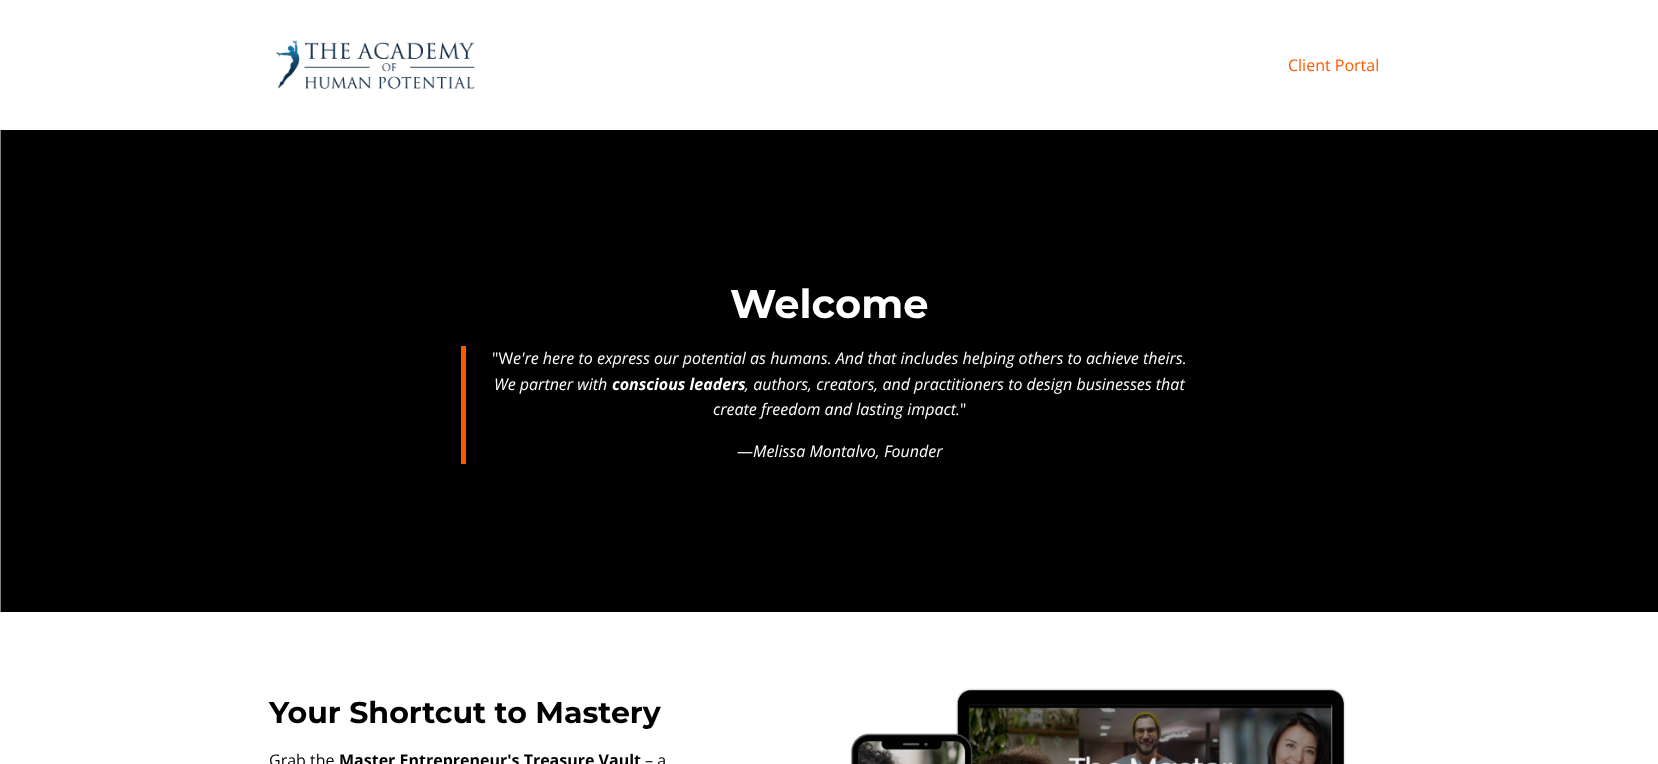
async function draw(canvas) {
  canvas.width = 1658
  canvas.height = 764
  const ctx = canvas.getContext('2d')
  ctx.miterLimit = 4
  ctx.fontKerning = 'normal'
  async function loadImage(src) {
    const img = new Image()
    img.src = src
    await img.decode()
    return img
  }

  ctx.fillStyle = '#fff'
  ctx.fillRect(0, 0, 1658, 764)
  ctx.fillStyle = '#808080'
  ctx.fillRect(0, 130, 1, 482)
  ctx.drawImage(await loadImage('image0.png'), 276, 40, 199, 49)
  ctx.font = '16px Open Sans'
  ctx.fillStyle = '#ff5800'
  ctx.fillText('Client Portal', 1288, 71)
  ctx.fillStyle = '#000'
  ctx.fillRect(1, 130, 1657, 482)
  ctx.font = 'bold 40px Montserrat'
  ctx.fillStyle = '#fff'
  ctx.fillText('Welcome', 730, 318)
  ctx.fillStyle = '#ff5800'
  ctx.fillRect(461, 346, 5, 118)
  ctx.font = '16px Open Sans'
  ctx.fillStyle = '#fff'
  ctx.fillText('"W', 492, 364)
  ctx.font = 'italic 16px Open Sans'
  ctx.fillText('e\'re here to express our potential as humans. And that includes helping others to achieve theirs.', 513, 364)
  ctx.fillText('We partner with', 494, 390)
  ctx.font = 'italic bold 16px Open Sans'
  ctx.fillText('conscious leaders', 612, 390)
  ctx.font = 'italic 16px Open Sans'
  ctx.fillText(', authors, creators, and practitioners to design businesses that', 745, 390)
  ctx.fillText('create freedom and lasting impact.', 713, 415)
  ctx.font = '16px Open Sans'
  ctx.fillText('"', 960, 415)
  ctx.fillText('—', 737, 457)
  ctx.font = 'italic 16px Open Sans'
  ctx.fillText('Melissa Montalvo, Founder', 753, 457)
  ctx.font = 'bold 30px Montserrat'
  ctx.fillStyle = '#000'
  ctx.fillText('Your Shortcut to Mastery', 269, 723)
  ctx.font = '16px Open Sans'
  ctx.fillText('Grab the', 269, 766)
  ctx.font = 'bold 16px Open Sans'
  ctx.fillText('Master Entrepreneur\'s Treasure Vault', 339, 766)
  ctx.font = '16px Open Sans'
  ctx.fillText('– a', 645, 766)
  ctx.drawImage(await loadImage('image1.png'), 850, 688, 496, 76)
}

draw(document.querySelector('canvas'))
